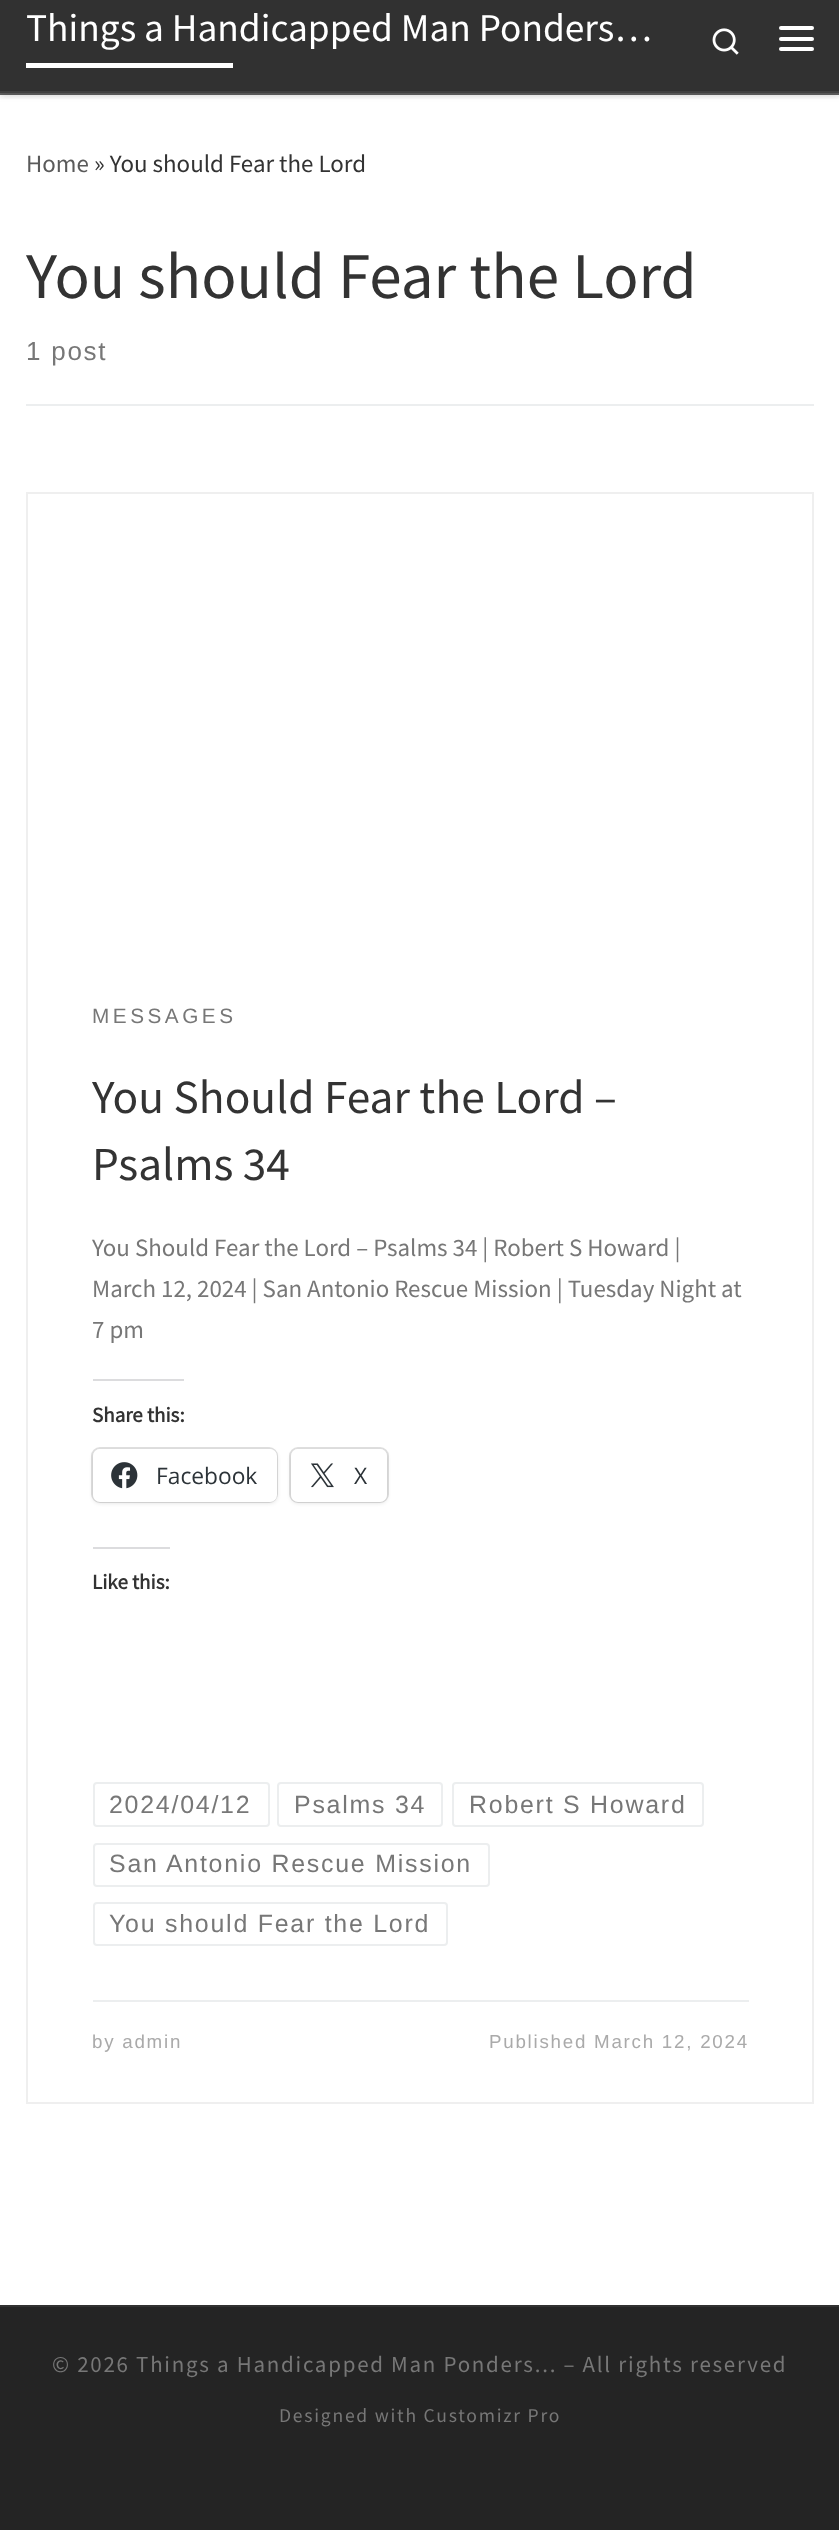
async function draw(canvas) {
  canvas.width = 839
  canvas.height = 2530
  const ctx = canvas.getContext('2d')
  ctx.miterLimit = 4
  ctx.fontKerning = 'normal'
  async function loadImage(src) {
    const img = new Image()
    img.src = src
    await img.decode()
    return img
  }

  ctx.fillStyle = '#fff'
  ctx.fillRect(0, 0, 839, 2530)
  ctx.fillStyle = '#66666614'
  ctx.filter = 'blur(2px)'
  ctx.beginPath()
  ctx.rect(0, -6, 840, 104)
  ctx.fill()
  ctx.filter = 'none'
  ctx.fillStyle = '#313131'
  ctx.fillRect(0, 0, 839, 91)
  ctx.fillStyle = '#606060'
  ctx.fillRect(0, 93, 839, 2)
  ctx.save()
  ctx.beginPath()
  ctx.rect(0, 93, 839, 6)
  ctx.clip()
  ctx.fillStyle = '#00000033'
  ctx.filter = 'blur(4.5px)'
  ctx.beginPath()
  ctx.rect(0, -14, 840, 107)
  ctx.fill()
  ctx.filter = 'none'
  ctx.restore()
  ctx.font = '39.4px Source Sans Pro'
  ctx.fillStyle = '#fff'
  ctx.fillText('Things a Handicapped Man Ponders…', 26, 41)
  ctx.fillRect(26, 63, 207, 5)
  ctx.drawImage(await loadImage('image0.png'), 712, 28, 27, 27)
  ctx.beginPath()
  ctx.roundRect(779, 26, 35, 4, 2)
  ctx.fill()
  ctx.beginPath()
  ctx.roundRect(779, 37, 35, 4, 2)
  ctx.fill()
  ctx.beginPath()
  ctx.roundRect(779, 47, 35, 4, 2)
  ctx.fill()
  ctx.fillStyle = '#404040'
  ctx.fillRect(0, 91, 839, 2)
  ctx.font = '24.95px Source Sans Pro'
  ctx.fillStyle = '#5a5a5a'
  ctx.fillText('Home', 26, 172)
  ctx.fillStyle = '#333'
  ctx.fillText('» You should Fear the Lord', 94, 172)
  ctx.font = '65.25px Source Sans Pro'
  ctx.fillText('You should Fear the Lord', 26, 298)
  ctx.letterSpacing = '1.75px'
  ctx.font = '26px Liberation Sans'
  ctx.fillStyle = '#777'
  ctx.fillText('1 post', 26, 360)
  ctx.fillStyle = '#eceeef'
  ctx.fillRect(26, 404, 788, 2)
  ctx.strokeStyle = '#efefef'
  ctx.lineWidth = 2
  ctx.strokeRect(27, 493, 786, 1610)
  ctx.letterSpacing = '3.5px'
  ctx.font = '20.75px Liberation Sans'
  ctx.fillStyle = '#777'
  ctx.fillText('MESSAGES', 92, 1023)
  ctx.letterSpacing = '0px'
  ctx.font = '47.4px Source Sans Pro'
  ctx.fillStyle = '#333'
  ctx.fillText('You Should Fear the Lord –', 92, 1113)
  ctx.fillText('Psalms 34', 92, 1180)
  ctx.font = '24.95px Source Sans Pro'
  ctx.fillStyle = '#777'
  ctx.fillText('You Should Fear the Lord – Psalms 34 | Robert S Howard |', 92, 1256)
  ctx.fillText('March 12, 2024 | San Antonio Rescue Mission | Tuesday Night at', 92, 1297)
  ctx.fillText('7 pm', 92, 1338)
  ctx.fillStyle = '#dcdcde'
  ctx.fillRect(93, 1379, 91, 2)
  ctx.font = 'bold 21px Source Sans Pro'
  ctx.fillStyle = '#333'
  ctx.fillText('Share this:', 92, 1422)
  ctx.beginPath()
  ctx.roundRect(92, 1448, 185, 54, 8)
  ctx.strokeStyle = '#e0e0e0'
  ctx.stroke()
  ctx.fillStyle = '#0000001f'
  ctx.filter = 'blur(2px)'
  ctx.beginPath()
  ctx.roundRect(93, 1451, 184, 52, 7)
  ctx.fill()
  ctx.filter = 'none'
  ctx.fillStyle = '#fff'
  ctx.beginPath()
  ctx.roundRect(93, 1449, 184, 53, 7)
  ctx.fill()
  ctx.drawImage(await loadImage('image1.png'), 111, 1462, 27, 27)
  ctx.font = '22.75px Open Sans'
  ctx.fillStyle = '#2c3338'
  ctx.fillText('Facebook', 156, 1484)
  ctx.beginPath()
  ctx.roundRect(290, 1448, 98, 54, 8)
  ctx.stroke()
  ctx.fillStyle = '#0000001f'
  ctx.filter = 'blur(2px)'
  ctx.beginPath()
  ctx.roundRect(291, 1451, 96, 52, 7)
  ctx.fill()
  ctx.filter = 'none'
  ctx.fillStyle = '#fff'
  ctx.beginPath()
  ctx.roundRect(291, 1449, 96, 53, 7)
  ctx.fill()
  ctx.drawImage(await loadImage('image2.png'), 311, 1463, 23, 25)
  ctx.fillStyle = '#2c3338'
  ctx.fillText('X', 354, 1484)
  ctx.fillStyle = '#dcdcde'
  ctx.fillRect(93, 1547, 77, 2)
  ctx.font = 'bold 21px Source Sans Pro'
  ctx.fillStyle = '#333'
  ctx.fillText('Like this:', 92, 1589)
  ctx.beginPath()
  ctx.roundRect(94, 1783, 175, 43, 3)
  ctx.strokeStyle = '#eceeef'
  ctx.stroke()
  ctx.letterSpacing = '1.75px'
  ctx.font = '24.95px Liberation Sans'
  ctx.fillStyle = '#777'
  ctx.fillText('2024/04/12', 109, 1813)
  ctx.beginPath()
  ctx.roundRect(278, 1783, 164, 43, 3)
  ctx.stroke()
  ctx.fillText('Psalms 34', 294, 1813)
  ctx.beginPath()
  ctx.roundRect(453, 1783, 250, 43, 3)
  ctx.stroke()
  ctx.fillText('Robert S Howard', 469, 1813)
  ctx.beginPath()
  ctx.roundRect(94, 1844, 395, 42, 3)
  ctx.stroke()
  ctx.fillText('San Antonio Rescue Mission', 109, 1872)
  ctx.beginPath()
  ctx.roundRect(94, 1903, 353, 42, 3)
  ctx.stroke()
  ctx.fillText('You should Fear the Lord', 109, 1932)
  ctx.fillStyle = '#eceeef'
  ctx.fillRect(93, 2000, 656, 2)
  ctx.font = '18.75px Liberation Sans'
  ctx.fillStyle = '#aaa'
  ctx.fillText('by admin', 92, 2048)
  ctx.fillText('Published March 12, 2024', 489, 2048)
  ctx.fillStyle = '#313131'
  ctx.fillRect(0, 2305, 839, 2)
  ctx.fillStyle = '#242424'
  ctx.fillRect(0, 2307, 839, 223)
  ctx.font = '22.95px Source Sans Pro'
  ctx.fillStyle = '#777'
  ctx.fillText('© 2026 Things a Handicapped Man Ponders... – All rights reserved', 52, 2372)
  ctx.font = '19.6px Source Sans Pro'
  ctx.fillText('Designed with Customizr Pro', 279, 2422)
}

draw(document.querySelector('canvas'))
